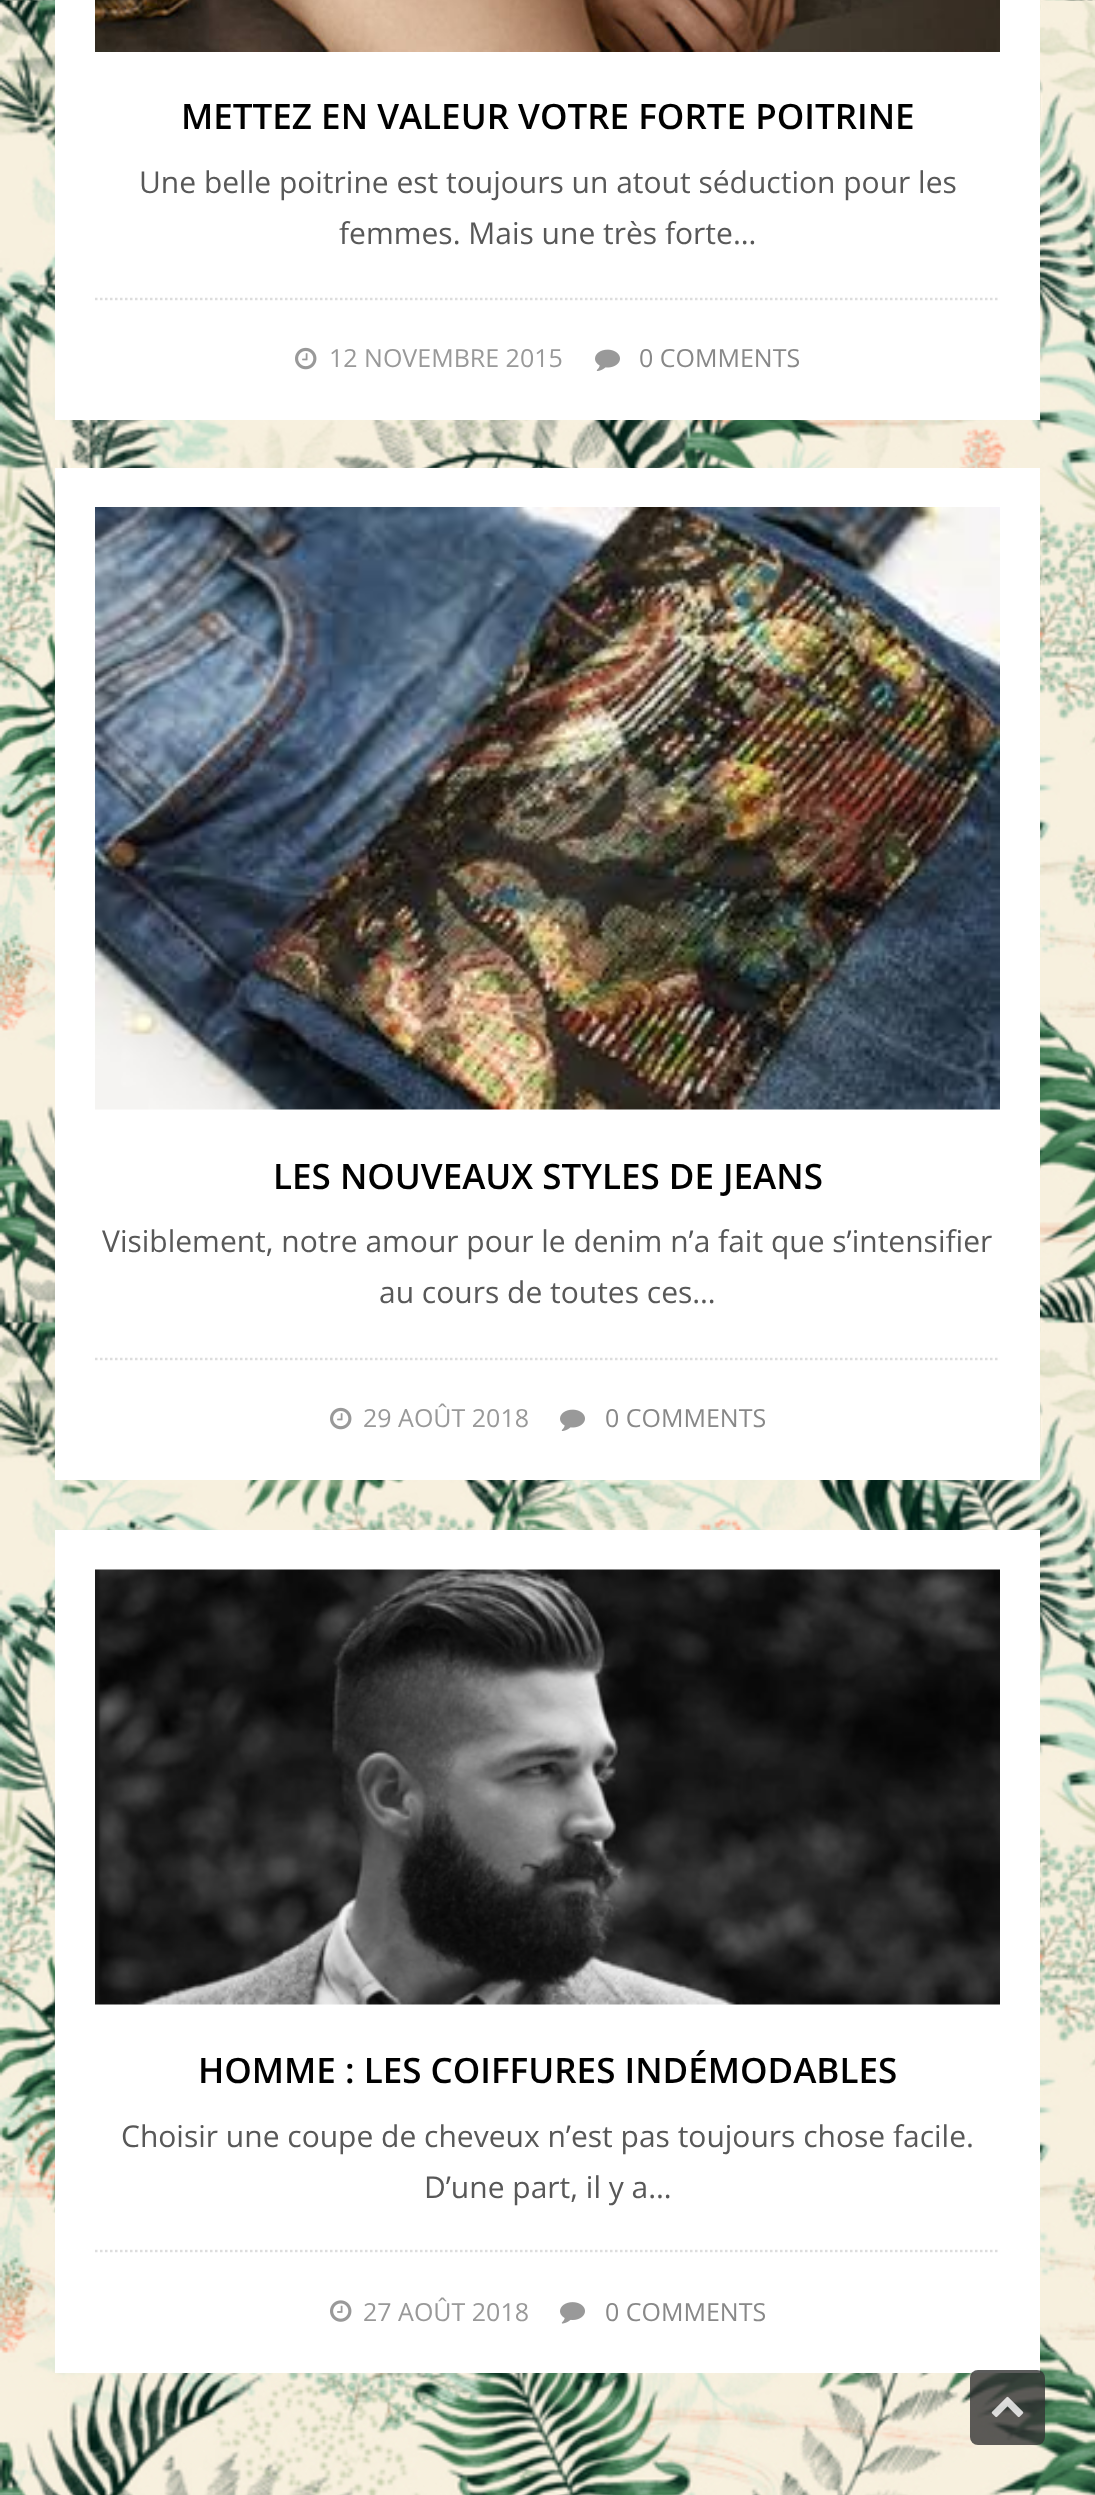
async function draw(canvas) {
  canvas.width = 1095
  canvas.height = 2495
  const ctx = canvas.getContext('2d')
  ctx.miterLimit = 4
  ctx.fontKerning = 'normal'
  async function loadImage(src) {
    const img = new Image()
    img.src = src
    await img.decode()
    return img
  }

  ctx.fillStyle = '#fff'
  ctx.fillRect(0, 0, 1095, 2495)
  ctx.drawImage(await loadImage('image0.png'), 0, 0, 1095, 2495)
  ctx.fillRect(55, 0, 985, 420)
  ctx.drawImage(await loadImage('image1.png'), 95, 0, 905, 52)
  ctx.font = '600 35px Open Sans'
  ctx.fillStyle = '#000'
  ctx.fillText('METTEZ EN VALEUR VOTRE FORTE POITRINE', 181, 129)
  ctx.font = '30px Open Sans'
  ctx.fillStyle = '#585858'
  ctx.fillText('Une belle poitrine est toujours un atout séduction pour les', 139, 193)
  ctx.fillText('femmes. Mais une très forte…', 339, 244)
  ctx.beginPath()
  ctx.moveTo(95, 299)
  ctx.lineTo(1000, 299)
  ctx.strokeStyle = '#ddd'
  ctx.lineWidth = 2.5
  ctx.setLineDash([2.5, 2.5])
  ctx.stroke()
  ctx.drawImage(await loadImage('image2.png'), 295, 347, 22, 23)
  ctx.font = '25px Open Sans'
  ctx.fillStyle = '#999'
  ctx.fillText('12 NOVEMBRE 2015', 329, 367)
  ctx.drawImage(await loadImage('image3.png'), 595, 349, 25, 22)
  ctx.fillStyle = '#888'
  ctx.fillText('0 COMMENTS', 639, 367)
  ctx.fillStyle = '#fff'
  ctx.fillRect(55, 468, 985, 1012)
  ctx.drawImage(await loadImage('image4.png'), 95, 507, 905, 603)
  ctx.font = '600 35px Open Sans'
  ctx.fillStyle = '#000'
  ctx.fillText('LES NOUVEAUX STYLES DE JEANS', 273, 1189)
  ctx.font = '30px Open Sans'
  ctx.fillStyle = '#585858'
  ctx.fillText('Visiblement, notre amour pour le denim n’a fait que s’intensifier', 102, 1252)
  ctx.fillText('au cours de toutes ces…', 379, 1303)
  ctx.beginPath()
  ctx.moveTo(95, 1359)
  ctx.lineTo(1000, 1359)
  ctx.stroke()
  ctx.drawImage(await loadImage('image2.png'), 330, 1407, 22, 23)
  ctx.font = '25px Open Sans'
  ctx.fillStyle = '#999'
  ctx.fillText('29 AOÛT 2018', 363, 1427)
  ctx.drawImage(await loadImage('image3.png'), 560, 1409, 25, 22)
  ctx.fillStyle = '#888'
  ctx.fillText('0 COMMENTS', 605, 1427)
  ctx.fillStyle = '#fff'
  ctx.fillRect(55, 1530, 985, 843)
  ctx.drawImage(await loadImage('image5.png'), 95, 1569, 905, 436)
  ctx.font = '600 35px Open Sans'
  ctx.fillStyle = '#000'
  ctx.fillText('HOMME : LES COIFFURES INDÉMODABLES', 198, 2083)
  ctx.font = '30px Open Sans'
  ctx.fillStyle = '#585858'
  ctx.fillText('Choisir une coupe de cheveux n’est pas toujours chose facile.', 121, 2147)
  ctx.fillText('D’une part, il y a…', 424, 2198)
  ctx.beginPath()
  ctx.moveTo(95, 2251)
  ctx.lineTo(1000, 2251)
  ctx.stroke()
  ctx.drawImage(await loadImage('image6.png'), 330, 2300, 22, 22)
  ctx.font = '25px Open Sans'
  ctx.fillStyle = '#999'
  ctx.fillText('27 AOÛT 2018', 363, 2321)
  ctx.drawImage(await loadImage('image7.png'), 560, 2302, 25, 22)
  ctx.fillStyle = '#888'
  ctx.fillText('0 COMMENTS', 605, 2321)
  ctx.fillStyle = '#333333cc'
  ctx.beginPath()
  ctx.roundRect(970, 2370, 75, 75, 8)
  ctx.fill()
  ctx.drawImage(await loadImage('image8.png'), 991, 2396, 33, 22)
}

draw(document.querySelector('canvas'))
